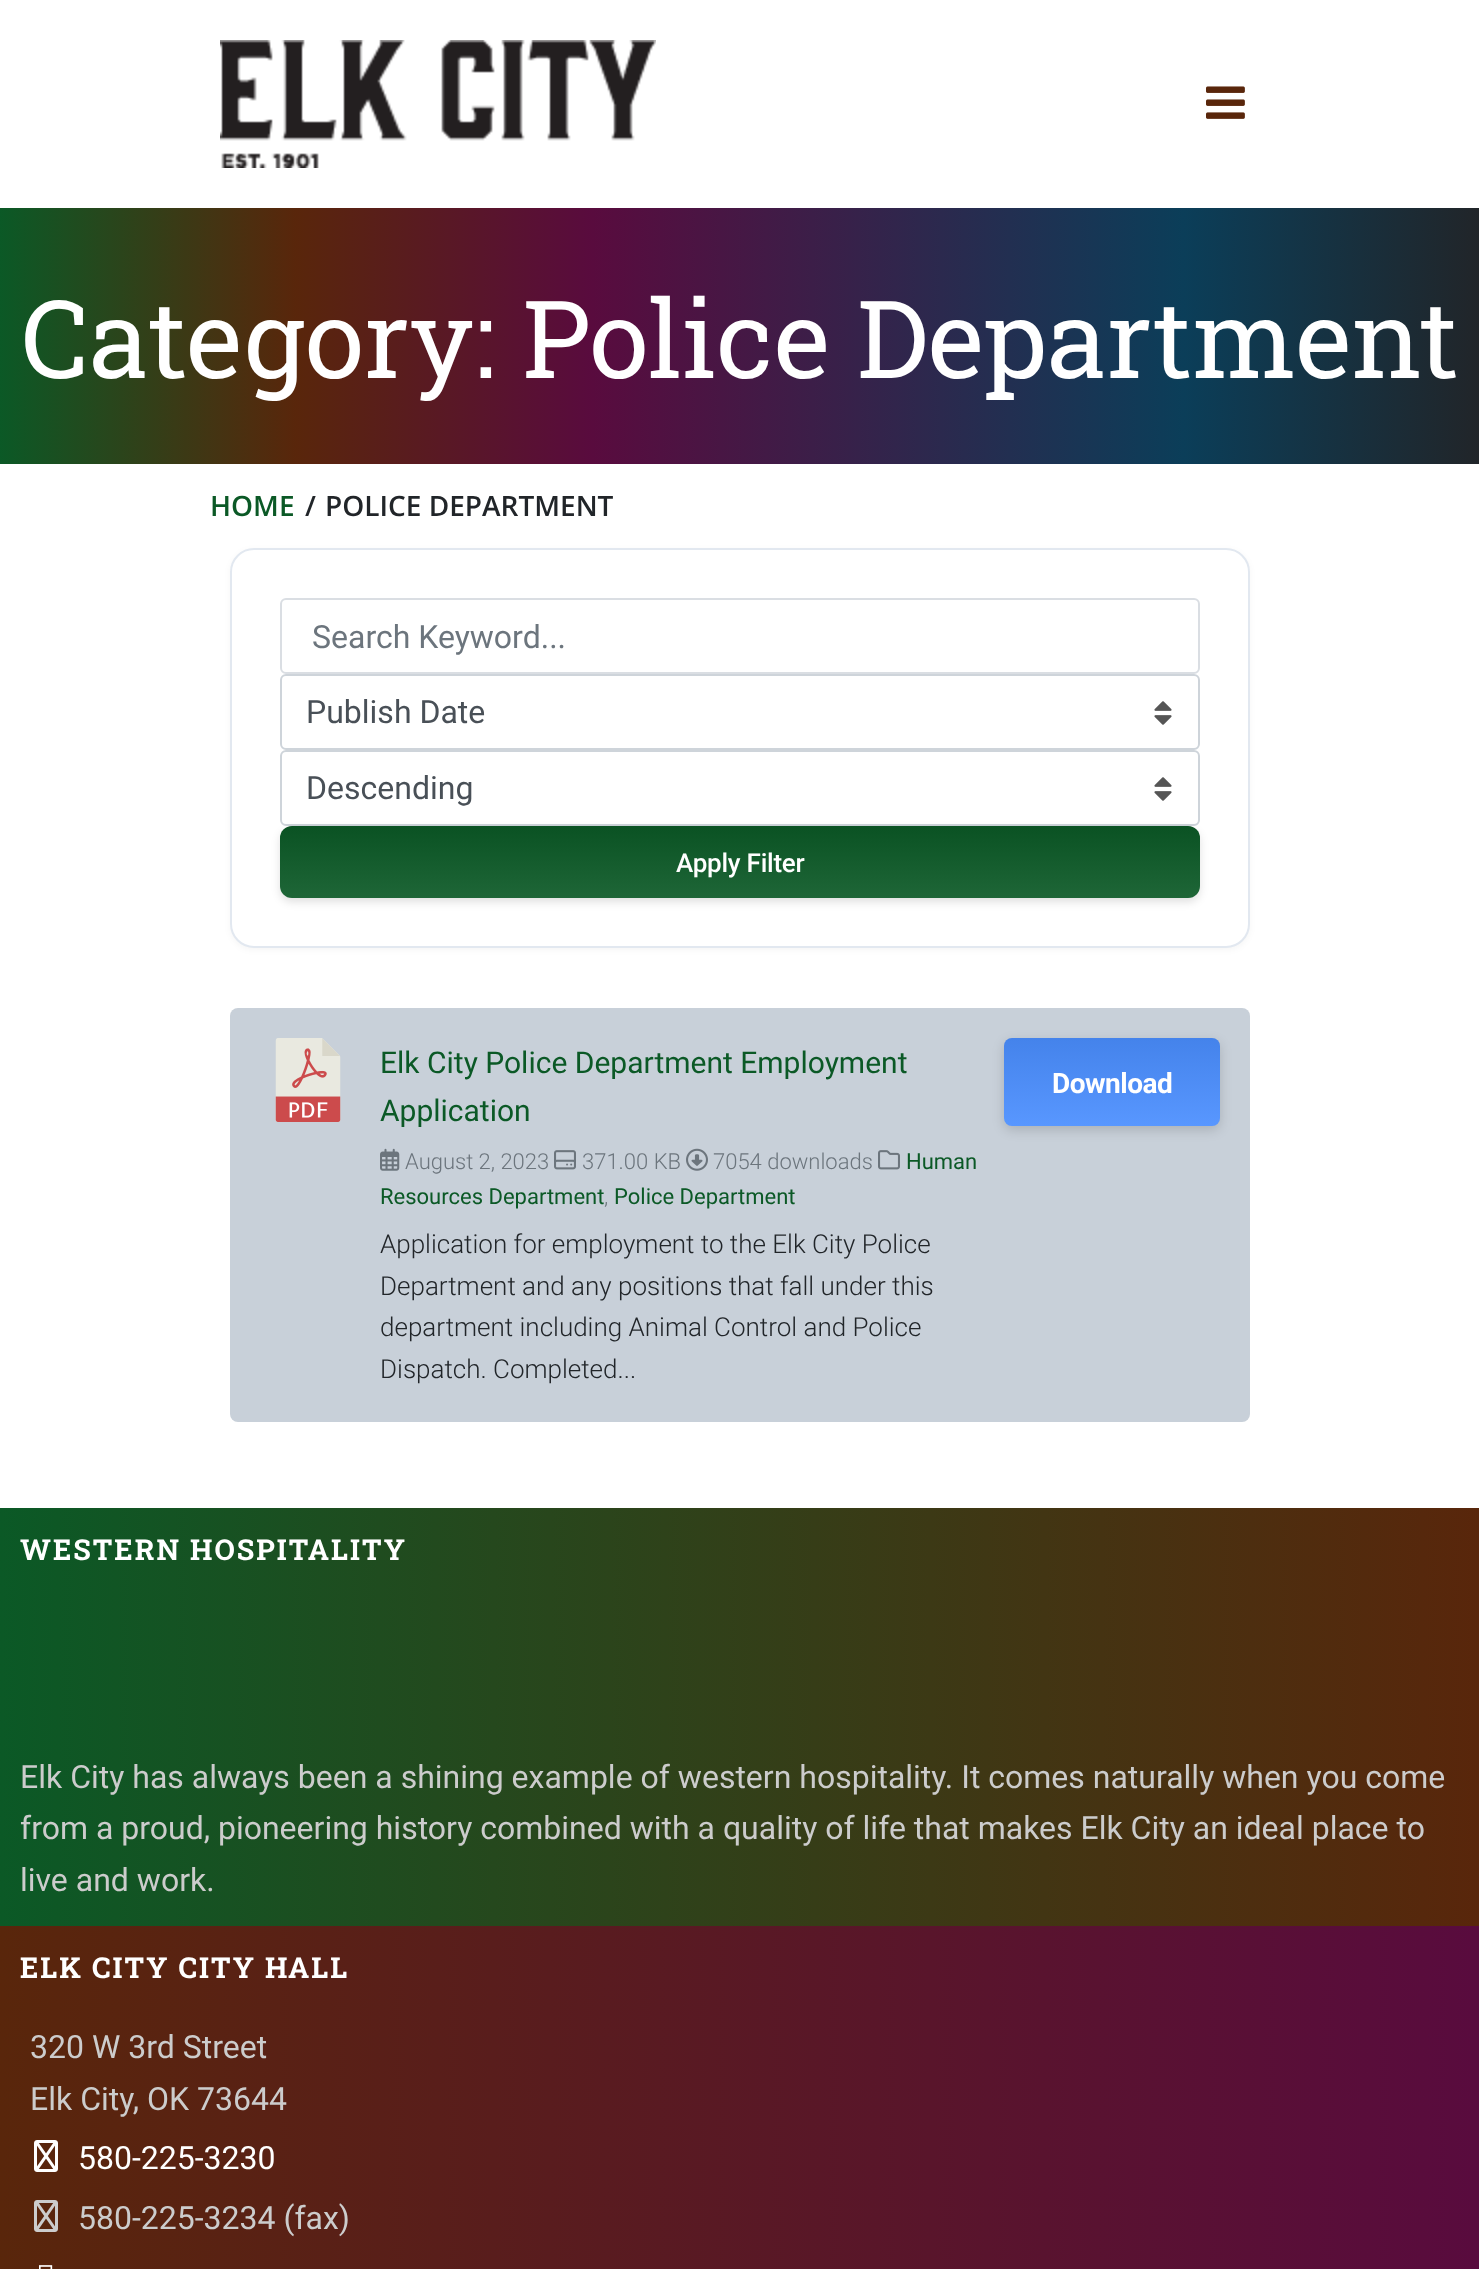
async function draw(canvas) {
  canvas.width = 1479
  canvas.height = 2269
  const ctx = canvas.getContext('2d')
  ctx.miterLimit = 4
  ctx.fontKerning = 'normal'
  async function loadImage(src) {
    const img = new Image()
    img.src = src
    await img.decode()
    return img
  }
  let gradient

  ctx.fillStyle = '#fff'
  ctx.fillRect(0, 0, 1479, 2269)
  ctx.drawImage(await loadImage('image0.png'), 220, 40, 436, 128)
  ctx.drawImage(await loadImage('image1.png'), 1206, 86, 39, 33)
  gradient = ctx.createLinearGradient(0, 232, 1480, 232)
  gradient.addColorStop(0, '#0b5926')
  gradient.addColorStop(0.2, '#59260b')
  gradient.addColorStop(0.4, '#590b3e')
  gradient.addColorStop(0.8, '#0b3e59')
  gradient.addColorStop(1, '#212529')
  ctx.fillStyle = gradient
  ctx.fillRect(0, 208, 1479, 256)
  ctx.font = '108px Roboto Slab'
  ctx.fillStyle = '#fff'
  ctx.fillText('Category: Police Department', 21, 378)
  ctx.font = '600 28px Open Sans'
  ctx.fillStyle = '#0b5926'
  ctx.fillText('HOME', 210, 516)
  ctx.fillStyle = '#212529'
  ctx.fillText('/', 305, 516)
  ctx.fillText('POLICE DEPARTMENT', 325, 516)
  ctx.fillStyle = '#0000000a'
  ctx.filter = 'blur(3px)'
  ctx.beginPath()
  ctx.roundRect(230, 550, 1020, 400, 24)
  ctx.fill()
  ctx.filter = 'none'
  ctx.fillStyle = '#fff'
  ctx.beginPath()
  ctx.roundRect(231, 549, 1018, 398, 23)
  ctx.fill()
  ctx.strokeStyle = '#e2e8f0'
  ctx.lineWidth = 2
  ctx.stroke()
  ctx.beginPath()
  ctx.roundRect(281, 599, 918, 74, 5)
  ctx.strokeStyle = '#dadee3'
  ctx.stroke()
  ctx.font = '32px Roboto'
  ctx.fillStyle = '#6c757d'
  ctx.fillText('Search Keyword...', 312, 648)
  ctx.drawImage(await loadImage('image2.png'), 1154, 701, 18, 24)
  ctx.beginPath()
  ctx.roundRect(281, 675, 918, 74, 5)
  ctx.strokeStyle = '#ced4da'
  ctx.stroke()
  ctx.fillStyle = '#495057'
  ctx.fillText('Publish Date', 306, 723)
  ctx.drawImage(await loadImage('image2.png'), 1154, 777, 18, 24)
  ctx.beginPath()
  ctx.roundRect(281, 751, 918, 74, 5)
  ctx.stroke()
  ctx.fillText('Descending', 306, 799)
  ctx.fillStyle = '#0000001f'
  ctx.filter = 'blur(4px)'
  ctx.beginPath()
  ctx.roundRect(280, 830, 920, 72, 12)
  ctx.fill()
  ctx.filter = 'none'
  ctx.fillStyle = '#0b5926'
  ctx.beginPath()
  ctx.roundRect(280, 826, 920, 72, 12)
  ctx.fill()
  gradient = ctx.createLinearGradient(740, 826, 740, 898)
  gradient.addColorStop(0, '#00000014')
  gradient.addColorStop(1, '#ffffff14')
  ctx.fillStyle = gradient
  ctx.beginPath()
  ctx.roundRect(280, 826, 920, 72, 12)
  ctx.fill()
  ctx.letterSpacing = '-0.25px'
  ctx.font = '500 26px Roboto'
  ctx.fillStyle = '#fff'
  ctx.fillText('Apply Filter', 676, 872)
  ctx.fillStyle = '#c8d0d9'
  ctx.beginPath()
  ctx.roundRect(230, 1008, 1020, 414, 8)
  ctx.fill()
  ctx.drawImage(await loadImage('image3.png'), 275, 1038, 66, 84)
  ctx.letterSpacing = '0px'
  ctx.font = '30px Roboto'
  ctx.fillStyle = '#0b5926'
  ctx.fillText('Elk City Police Department Employment', 380, 1073)
  ctx.fillText('Application', 380, 1121)
  ctx.drawImage(await loadImage('image4.png'), 380, 1148, 20, 23)
  ctx.font = '300 22px Roboto'
  ctx.fillStyle = '#6c757d'
  ctx.fillText('August 2, 2023', 405, 1169)
  ctx.drawImage(await loadImage('image5.png'), 554, 1150, 22, 20)
  ctx.fillText('371.00 KB', 582, 1169)
  ctx.drawImage(await loadImage('image6.png'), 686, 1148, 22, 23)
  ctx.fillText('7054 downloads', 713, 1169)
  ctx.drawImage(await loadImage('image7.png'), 878, 1150, 22, 20)
  ctx.font = '22px Roboto'
  ctx.fillStyle = '#0b5926'
  ctx.fillText('Human', 906, 1169)
  ctx.fillText('Resources Department', 380, 1204)
  ctx.font = '300 22px Roboto'
  ctx.fillStyle = '#6c757d'
  ctx.fillText(',', 604, 1204)
  ctx.font = '22px Roboto'
  ctx.fillStyle = '#0b5926'
  ctx.fillText('Police Department', 614, 1204)
  ctx.font = '300 26px Roboto'
  ctx.fillStyle = '#212529'
  ctx.fillText('Application for employment to the Elk City Police', 380, 1253)
  ctx.fillText('Department and any positions that fall under this', 380, 1295)
  ctx.fillText('department including Animal Control and Police', 380, 1336)
  ctx.fillText('Dispatch. Completed...', 380, 1378)
  ctx.fillStyle = '#00000026'
  ctx.filter = 'blur(6px)'
  ctx.beginPath()
  ctx.roundRect(1004, 1042, 216, 88, 8)
  ctx.fill()
  ctx.filter = 'none'
  ctx.fillStyle = '#4a8eff'
  ctx.beginPath()
  ctx.roundRect(1004, 1038, 216, 88, 8)
  ctx.fill()
  gradient = ctx.createLinearGradient(1112, 1038, 1112, 1126)
  gradient.addColorStop(0, '#00000014')
  gradient.addColorStop(1, '#ffffff14')
  ctx.fillStyle = gradient
  ctx.beginPath()
  ctx.roundRect(1004, 1038, 216, 88, 8)
  ctx.fill()
  ctx.letterSpacing = '-0.5px'
  ctx.font = 'bold 28px Roboto'
  ctx.fillStyle = '#fff'
  ctx.fillText('Download', 1052, 1093)
  gradient = ctx.createLinearGradient(0, 1717, 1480, 1717)
  gradient.addColorStop(0, '#0b5926')
  gradient.addColorStop(1, '#59260b')
  ctx.fillStyle = gradient
  ctx.fillRect(0, 1508, 1479, 418)
  ctx.letterSpacing = '2px'
  ctx.font = 'bold 28.75px Roboto Slab'
  ctx.fillStyle = '#fff'
  ctx.fillText('WESTERN HOSPITALITY', 20, 1560)
  ctx.letterSpacing = '0px'
  ctx.font = '32px Roboto'
  ctx.fillStyle = '#ccc'
  ctx.fillText('Elk City has always been a shining example of western hospitality. It comes naturally when you come', 20, 1788)
  ctx.fillText('from a proud, pioneering history combined with a quality of life that makes Elk City an ideal place to', 20, 1839)
  ctx.fillText('live and work.', 20, 1891)
  gradient = ctx.createLinearGradient(0, 2160, 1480, 2160)
  gradient.addColorStop(0, '#59260b')
  gradient.addColorStop(1, '#590b3e')
  ctx.fillStyle = gradient
  ctx.fillRect(0, 1926, 1479, 343)
  ctx.letterSpacing = '2px'
  ctx.font = 'bold 28.75px Roboto Slab'
  ctx.fillStyle = '#fff'
  ctx.fillText('ELK CITY CITY HALL', 20, 1978)
  ctx.letterSpacing = '0px'
  ctx.font = '32px Roboto'
  ctx.fillStyle = '#ccc'
  ctx.fillText('320 W 3rd Street', 30, 2058)
  ctx.fillText('Elk City, OK 73644', 30, 2110)
  ctx.drawImage(await loadImage('image8.png'), 34, 2140, 24, 32)
  ctx.fillStyle = '#fff'
  ctx.fillText('580-225-3230', 78, 2169)
  ctx.drawImage(await loadImage('image9.png'), 34, 2200, 24, 32)
  ctx.fillStyle = '#ccc'
  ctx.fillText('580-225-3234 (fax)', 78, 2229)
  ctx.drawImage(await loadImage('image10.png'), 39, 2265, 14, 4)
}

draw(document.querySelector('canvas'))
